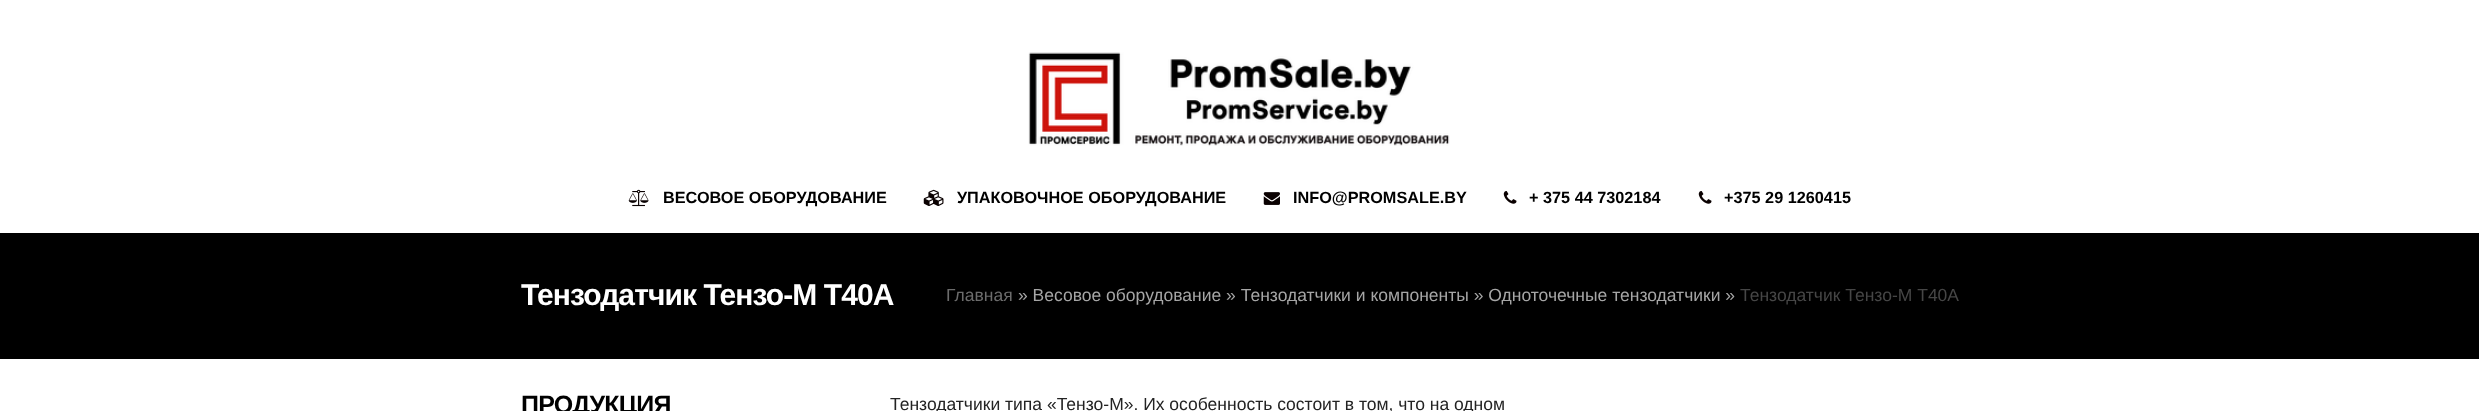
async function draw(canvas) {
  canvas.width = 2479
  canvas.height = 411
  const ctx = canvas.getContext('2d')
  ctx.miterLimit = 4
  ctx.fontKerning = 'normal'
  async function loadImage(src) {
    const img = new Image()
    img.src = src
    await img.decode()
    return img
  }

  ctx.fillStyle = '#fff'
  ctx.fillRect(0, 0, 2479, 411)
  ctx.drawImage(await loadImage('image0.png'), 1028, 52, 422, 94)
  ctx.drawImage(await loadImage('image1.png'), 628, 189, 21, 18)
  ctx.font = 'bold 16.25px Liberation Sans'
  ctx.fillStyle = '#000'
  ctx.fillText('ВЕСОВОЕ ОБОРУДОВАНИЕ', 663, 203)
  ctx.drawImage(await loadImage('image2.png'), 923, 189, 21, 17)
  ctx.fillText('УПАКОВОЧНОЕ ОБОРУДОВАНИЕ', 957, 203)
  ctx.drawImage(await loadImage('image3.png'), 1263, 192, 17, 13)
  ctx.fillText('INFO@PROMSALE.BY', 1293, 203)
  ctx.drawImage(await loadImage('image4.png'), 1503, 191, 14, 13)
  ctx.fillText('+ 375 44 7302184', 1529, 203)
  ctx.drawImage(await loadImage('image4.png'), 1698, 191, 14, 13)
  ctx.fillText('+375 29 1260415', 1724, 203)
  ctx.fillRect(0, 233, 2479, 126)
  ctx.letterSpacing = '-0.9px'
  ctx.font = 'bold 30px Liberation Sans'
  ctx.fillStyle = '#fff'
  ctx.fillText('Тензодатчик Тензо-М Т40А', 521, 305)
  ctx.letterSpacing = '0px'
  ctx.font = '17.5px Liberation Sans'
  ctx.fillStyle = '#6c6c6c'
  ctx.fillText('Главная', 946, 301)
  ctx.fillStyle = '#a6a6a6'
  ctx.fillText('» Весовое оборудование » Тензодатчики и компоненты » Одноточечные тензодатчики »', 1018, 301)
  ctx.fillStyle = '#464646'
  ctx.fillText('Тензодатчик Тензо-М Т40А', 1740, 301)
  ctx.letterSpacing = '-0.75px'
  ctx.font = 'bold 25px Liberation Sans'
  ctx.fillStyle = '#000'
  ctx.fillText('ПРОДУКЦИЯ', 521, 413)
  ctx.letterSpacing = '0px'
  ctx.font = '17.5px Liberation Sans'
  ctx.fillStyle = '#232323'
  ctx.fillText('Тензодатчики типа «Тензо-М». Их особенность состоит в том, что на одном', 890, 410)
}

draw(document.querySelector('canvas'))
